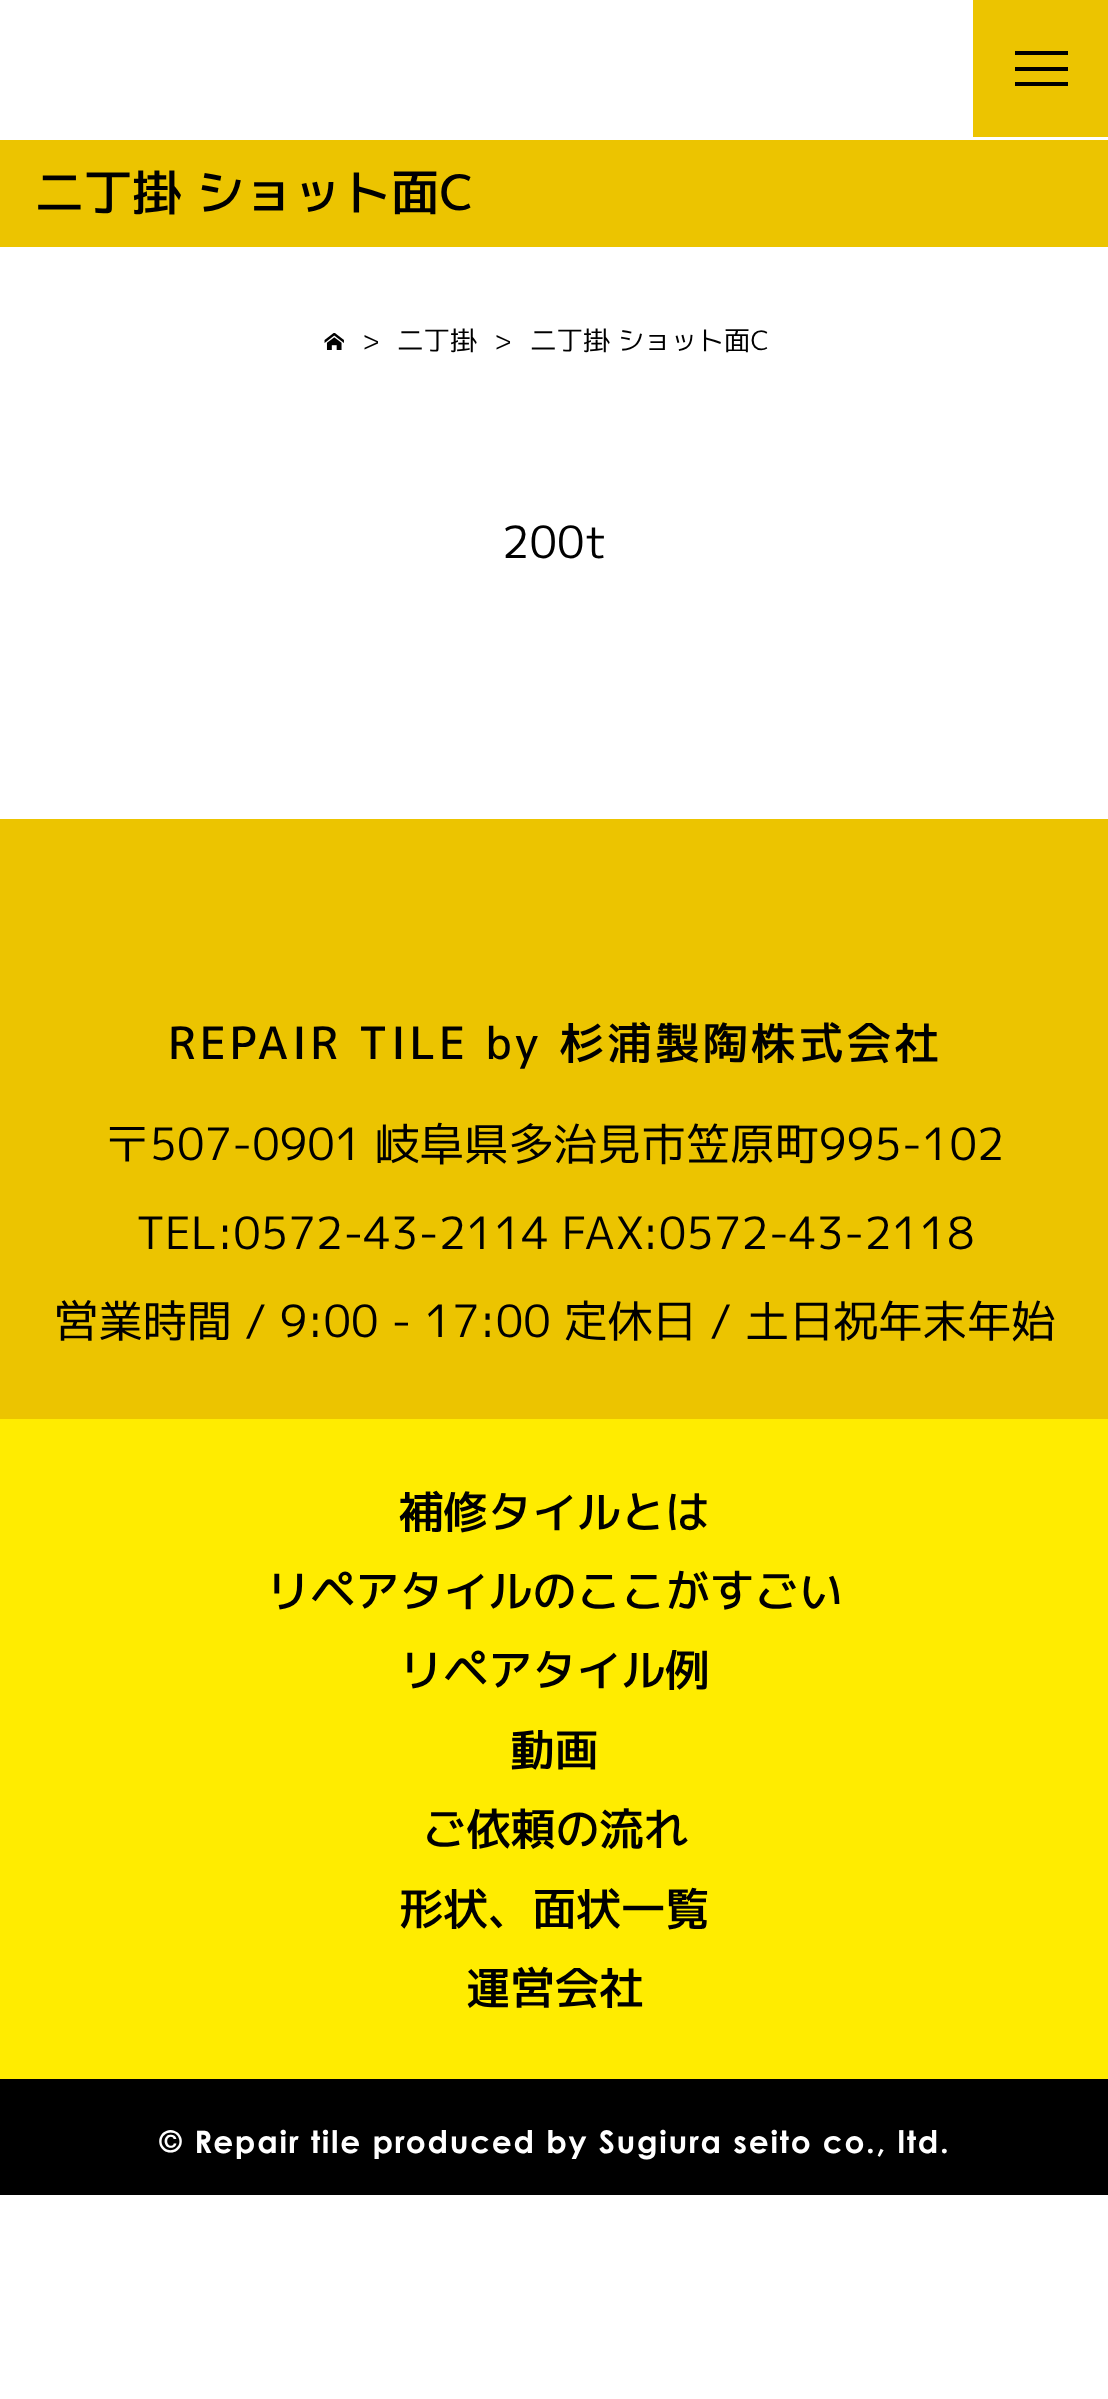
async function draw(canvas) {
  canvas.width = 1108
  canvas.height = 2399
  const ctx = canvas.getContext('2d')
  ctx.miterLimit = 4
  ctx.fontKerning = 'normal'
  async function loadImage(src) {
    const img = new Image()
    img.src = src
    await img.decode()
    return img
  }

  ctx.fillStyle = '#fff'
  ctx.fillRect(0, 0, 1108, 2399)
  ctx.fillStyle = '#ecc400'
  ctx.fillRect(973, 0, 135, 137)
  ctx.fillStyle = '#000'
  ctx.fillRect(1015, 51, 53, 4)
  ctx.fillRect(1015, 67, 53, 4)
  ctx.fillRect(1015, 82, 53, 4)
  ctx.fillStyle = '#ecc400'
  ctx.fillRect(0, 140, 1108, 107)
  ctx.font = '500 48.75px "M PLUS 1p"'
  ctx.fillStyle = '#000'
  ctx.fillText('二丁掛 ショット面C', 35, 210)
  ctx.drawImage(await loadImage('image0.png'), 324, 333, 20, 17)
  ctx.font = '26.6px "M PLUS 1p"'
  ctx.fillText('>', 362, 350)
  ctx.fillText('二丁掛', 397, 350)
  ctx.fillText('>', 494, 350)
  ctx.fillText('二丁掛 ショット面C', 530, 350)
  ctx.font = '44.4px "M PLUS 1p"'
  ctx.fillText('200t', 502, 558)
  ctx.fillStyle = '#ecc400'
  ctx.fillRect(0, 819, 1108, 600)
  ctx.letterSpacing = '3.5px'
  ctx.font = '500 44.4px "M PLUS 1p"'
  ctx.fillStyle = '#000'
  ctx.fillText('REPAIR TILE by 杉浦製陶株式会社', 168, 1059)
  ctx.letterSpacing = '0px'
  ctx.font = '44.4px "M PLUS 1p"'
  ctx.fillText('〒507-0901 岐阜県多治見市笠原町995-102', 105, 1160)
  ctx.fillText('TEL:0572-43-2114 FAX:0572-43-2118', 136, 1249)
  ctx.fillText('営業時間 / 9:00 - 17:00 定休日 / 土日祝年末年始', 54, 1337)
  ctx.fillStyle = '#ffec00'
  ctx.fillRect(0, 1419, 1108, 660)
  ctx.font = '500 44.4px "M PLUS 1p"'
  ctx.fillStyle = '#000'
  ctx.fillText('補修タイルとは', 399, 1528)
  ctx.fillText('リペアタイルのここがすごい', 266, 1607)
  ctx.fillText('リペアタイル例', 399, 1686)
  ctx.fillText('動画', 510, 1766)
  ctx.fillText('ご依頼の流れ', 422, 1845)
  ctx.fillText('形状、面状一覧', 399, 1925)
  ctx.fillText('運営会社', 466, 2004)
  ctx.fillRect(0, 2079, 1108, 116)
  ctx.letterSpacing = '1.75px'
  ctx.font = 'bold 31.1px Century Gothic'
  ctx.fillStyle = '#fff'
  ctx.fillText('© Repair tile produced by Sugiura seito co., ltd.', 159, 2153)
}

draw(document.querySelector('canvas'))
